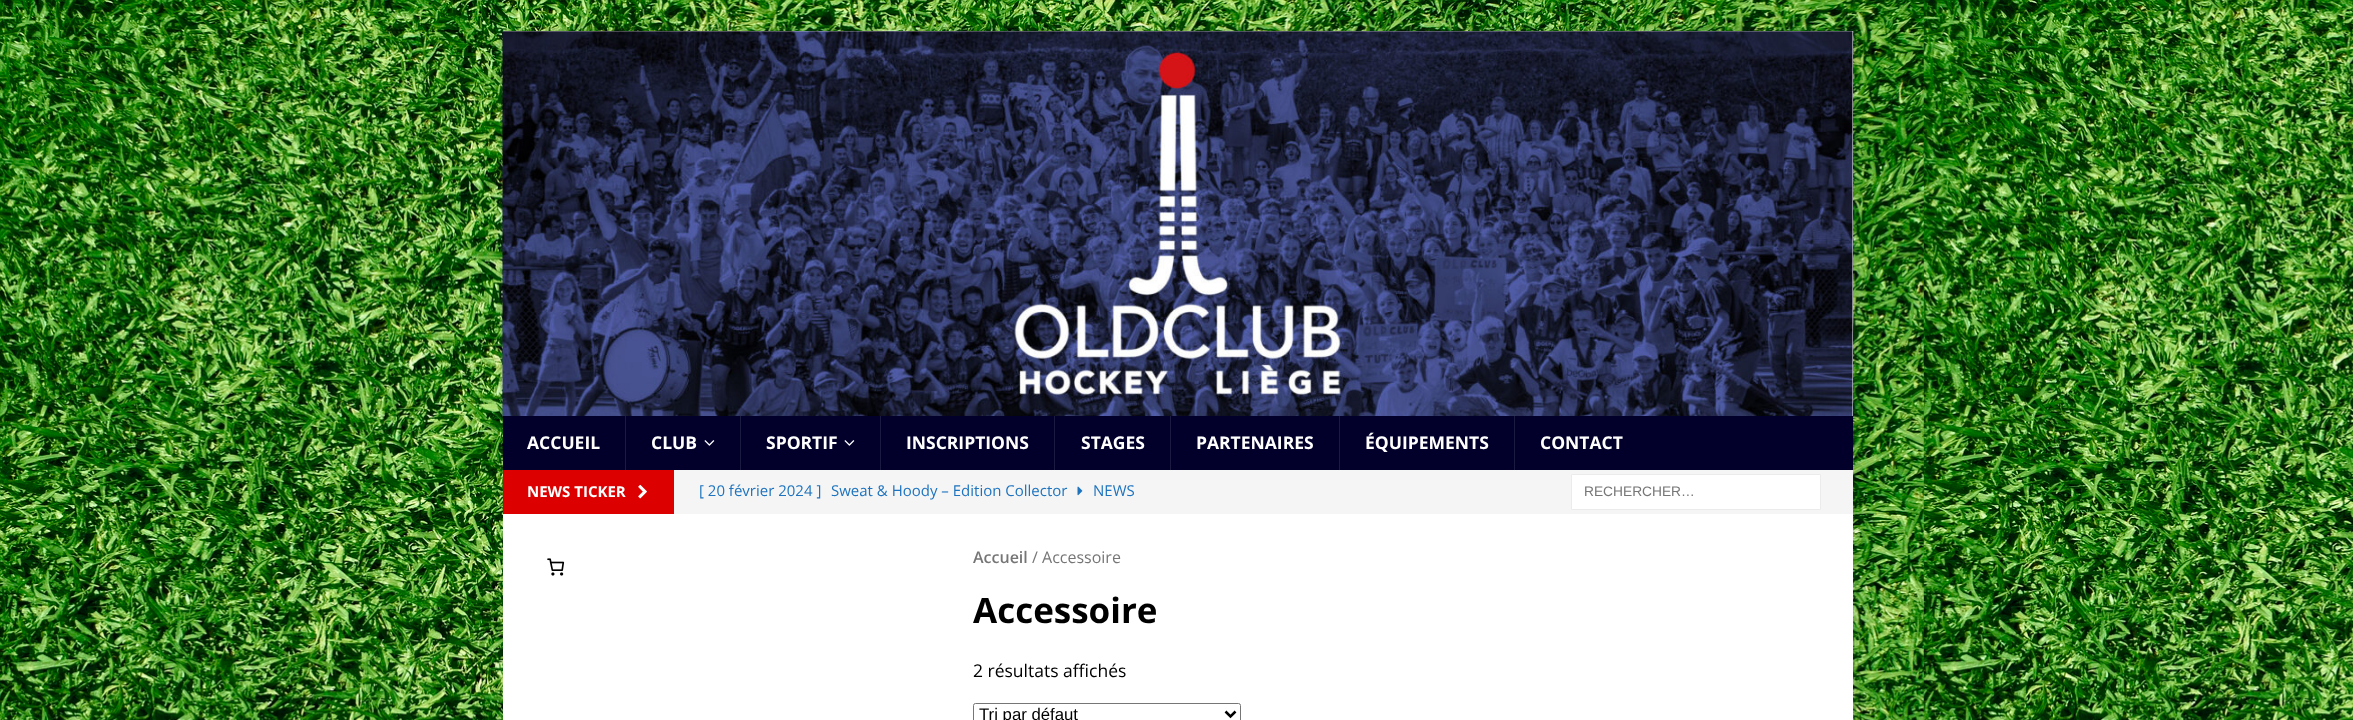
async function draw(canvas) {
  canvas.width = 2353
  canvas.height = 720
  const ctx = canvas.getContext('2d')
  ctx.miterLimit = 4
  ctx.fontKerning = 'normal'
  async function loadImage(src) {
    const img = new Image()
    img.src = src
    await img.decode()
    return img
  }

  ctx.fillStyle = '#fff'
  ctx.fillRect(0, 0, 2353, 720)
  ctx.drawImage(await loadImage('image0.png'), 0, 0, 2353, 720)
  ctx.fillStyle = '#3232322b'
  ctx.filter = 'blur(6px)'
  ctx.beginPath()
  ctx.rect(503, 31, 1350, 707)
  ctx.fill()
  ctx.filter = 'none'
  ctx.fillStyle = '#fff'
  ctx.fillRect(503, 31, 1350, 385)
  ctx.drawImage(await loadImage('image1.png'), 502, 31, 1351, 386)
  ctx.fillStyle = '#02002b'
  ctx.fillRect(503, 416, 1350, 54)
  ctx.font = 'bold 17.5px Open Sans'
  ctx.fillStyle = '#fff'
  ctx.fillText('ACCUEIL', 527, 449)
  ctx.fillStyle = '#1b1a40'
  ctx.fillRect(625, 416, 1, 54)
  ctx.fillStyle = '#fff'
  ctx.fillText('CLUB', 651, 449)
  ctx.drawImage(await loadImage('image2.png'), 704, 440, 11, 6)
  ctx.fillStyle = '#1b1a40'
  ctx.fillRect(740, 416, 1, 54)
  ctx.fillStyle = '#fff'
  ctx.fillText('SPORTIF', 766, 449)
  ctx.drawImage(await loadImage('image2.png'), 844, 440, 11, 6)
  ctx.fillStyle = '#1b1a40'
  ctx.fillRect(880, 416, 1, 54)
  ctx.fillStyle = '#fff'
  ctx.fillText('INSCRIPTIONS', 906, 449)
  ctx.fillStyle = '#1b1a40'
  ctx.fillRect(1054, 416, 1, 54)
  ctx.fillStyle = '#fff'
  ctx.fillText('STAGES', 1081, 449)
  ctx.fillStyle = '#1b1a40'
  ctx.fillRect(1170, 416, 1, 54)
  ctx.fillStyle = '#fff'
  ctx.fillText('PARTENAIRES', 1196, 449)
  ctx.fillStyle = '#1b1a40'
  ctx.fillRect(1339, 416, 1, 54)
  ctx.fillStyle = '#fff'
  ctx.fillText('ÉQUIPEMENTS', 1365, 449)
  ctx.fillStyle = '#1b1a40'
  ctx.fillRect(1514, 416, 1, 54)
  ctx.fillStyle = '#fff'
  ctx.fillText('CONTACT', 1540, 449)
  ctx.fillStyle = '#f5f5f5'
  ctx.fillRect(674, 470, 1179, 44)
  ctx.fillStyle = '#d00'
  ctx.fillRect(503, 470, 171, 44)
  ctx.font = 'bold 15px Open Sans'
  ctx.fillStyle = '#fff'
  ctx.fillText('NEWS TICKER', 527, 497)
  ctx.drawImage(await loadImage('image3.png'), 638, 484, 9, 15)
  ctx.font = '15px Open Sans'
  ctx.fillStyle = '#1e73be'
  ctx.fillText('[ 20 février 2024 ]', 699, 496)
  ctx.fillText('Sweat & Hoody – Edition Collector', 831, 496)
  ctx.drawImage(await loadImage('image4.png'), 1077, 486, 6, 10)
  ctx.fillText('NEWS', 1093, 496)
  ctx.fillStyle = '#fff'
  ctx.beginPath()
  ctx.rect(1571.5, 474.5, 249, 35)
  ctx.fill()
  ctx.strokeStyle = '#ebebeb'
  ctx.stroke()
  ctx.font = '13.75px Liberation Sans'
  ctx.fillStyle = '#767676'
  ctx.fillText('RECHERCHER…', 1584, 496)
  ctx.fillStyle = '#fff'
  ctx.fillRect(503, 514, 1350, 206)
  ctx.drawImage(await loadImage('image5.png'), 547, 558, 18, 18)
  ctx.font = '600 16px Open Sans'
  ctx.fillStyle = '#767676'
  ctx.fillText('Accueil', 973, 563)
  ctx.font = '16px Open Sans'
  ctx.fillText('/ Accessoire', 1032, 563)
  ctx.font = 'bold 35px Open Sans'
  ctx.fillStyle = '#000'
  ctx.fillText('Accessoire', 973, 623)
  ctx.font = '17.5px Open Sans'
  ctx.fillText('2 résultats affichés', 973, 677)
  ctx.beginPath()
  ctx.roundRect(973.5, 703.5, 267, 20, 2)
  ctx.strokeStyle = '#767676'
  ctx.stroke()
  ctx.beginPath()
  ctx.moveTo(1225.5, 711.5)
  ctx.lineTo(1230.5, 716.5)
  ctx.lineTo(1235.5, 711.5)
  ctx.strokeStyle = '#000'
  ctx.lineWidth = 2.5
  ctx.stroke()
  ctx.font = '16.75px Liberation Sans'
  ctx.fillText('Tri par défaut', 979, 720)
}

draw(document.querySelector('canvas'))
